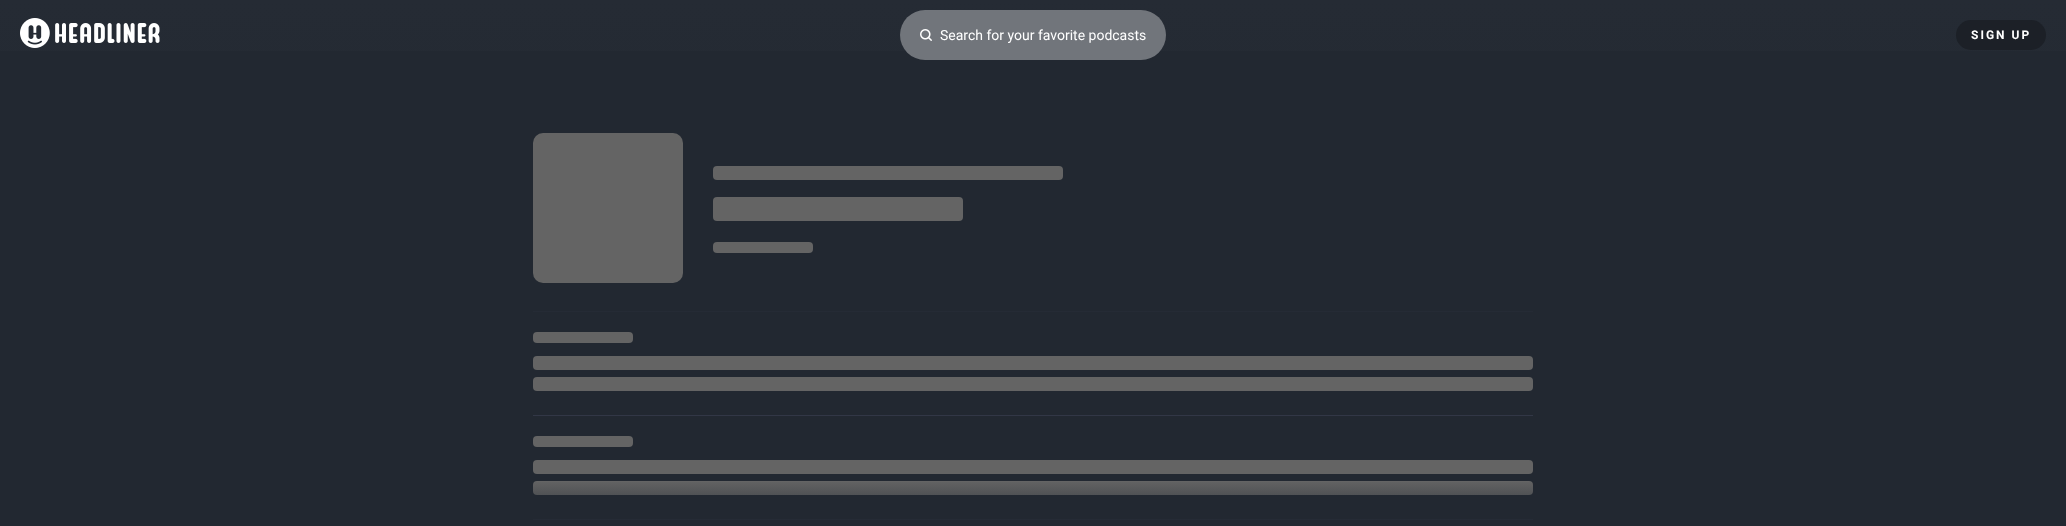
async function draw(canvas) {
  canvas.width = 2066
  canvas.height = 526
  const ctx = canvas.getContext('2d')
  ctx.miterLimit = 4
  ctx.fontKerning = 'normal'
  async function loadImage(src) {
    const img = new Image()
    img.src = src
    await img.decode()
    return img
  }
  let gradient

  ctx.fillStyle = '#222831'
  ctx.fillRect(0, 0, 2066, 526)
  gradient = ctx.createLinearGradient(1033, 0, 1033, 308)
  gradient.addColorStop(0, '#252b34')
  gradient.addColorStop(1, '#222831')
  ctx.fillStyle = gradient
  ctx.fillRect(0, 0, 2066, 51)
  ctx.drawImage(await loadImage('image0.png'), 20, 18, 140, 30)
  ctx.fillStyle = '#71757b'
  ctx.beginPath()
  ctx.roundRect(900, 10, 266, 50, 25)
  ctx.fill()
  ctx.drawImage(await loadImage('image1.png'), 920, 29, 12, 12)
  ctx.font = '14px Roboto'
  ctx.fillStyle = '#fff'
  ctx.fillText('Search for your favorite podcasts', 940, 40)
  ctx.fillStyle = '#1c2027'
  ctx.beginPath()
  ctx.roundRect(1956, 20, 90, 30, 15)
  ctx.fill()
  ctx.letterSpacing = '2px'
  ctx.font = 'bold 12px Roboto'
  ctx.fillStyle = '#fff'
  ctx.fillText('SIGN UP', 1971, 39)
  ctx.fillStyle = '#646464'
  ctx.beginPath()
  ctx.roundRect(533, 133, 150, 150, 10)
  ctx.fill()
  ctx.beginPath()
  ctx.roundRect(713, 166, 350, 14, 4)
  ctx.fill()
  ctx.beginPath()
  ctx.roundRect(713, 197, 250, 24, 4)
  ctx.fill()
  ctx.beginPath()
  ctx.roundRect(713, 242, 100, 11, 4)
  ctx.fill()
  ctx.fillStyle = '#323746'
  ctx.fillRect(533, 311, 1000, 1)
  gradient = ctx.createLinearGradient(1033, 308, 1033, 328)
  gradient.addColorStop(0, '#222831')
  gradient.addColorStop(1, '#22283100')
  ctx.fillStyle = gradient
  ctx.fillRect(533, 311, 1000, 1)
  ctx.fillStyle = '#646464'
  ctx.beginPath()
  ctx.roundRect(533, 332, 100, 11, 4)
  ctx.fill()
  ctx.beginPath()
  ctx.roundRect(533, 356, 1000, 14, 4)
  ctx.fill()
  ctx.beginPath()
  ctx.roundRect(533, 377, 1000, 14, 4)
  ctx.fill()
  ctx.fillStyle = '#323746'
  ctx.fillRect(533, 415, 1000, 1)
  ctx.fillStyle = '#646464'
  ctx.beginPath()
  ctx.roundRect(533, 436, 100, 11, 4)
  ctx.fill()
  ctx.beginPath()
  ctx.roundRect(533, 460, 1000, 14, 4)
  ctx.fill()
  ctx.beginPath()
  ctx.roundRect(533, 481, 1000, 14, 4)
  ctx.fill()
  ctx.fillStyle = '#323746'
  ctx.fillRect(533, 519, 1000, 1)
  gradient = ctx.createLinearGradient(1033, 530, 1033, 480)
  gradient.addColorStop(0, '#222831')
  gradient.addColorStop(1, '#22283100')
  ctx.fillStyle = gradient
  ctx.fillRect(533, 482, 1000, 38)
}

draw(document.querySelector('canvas'))
